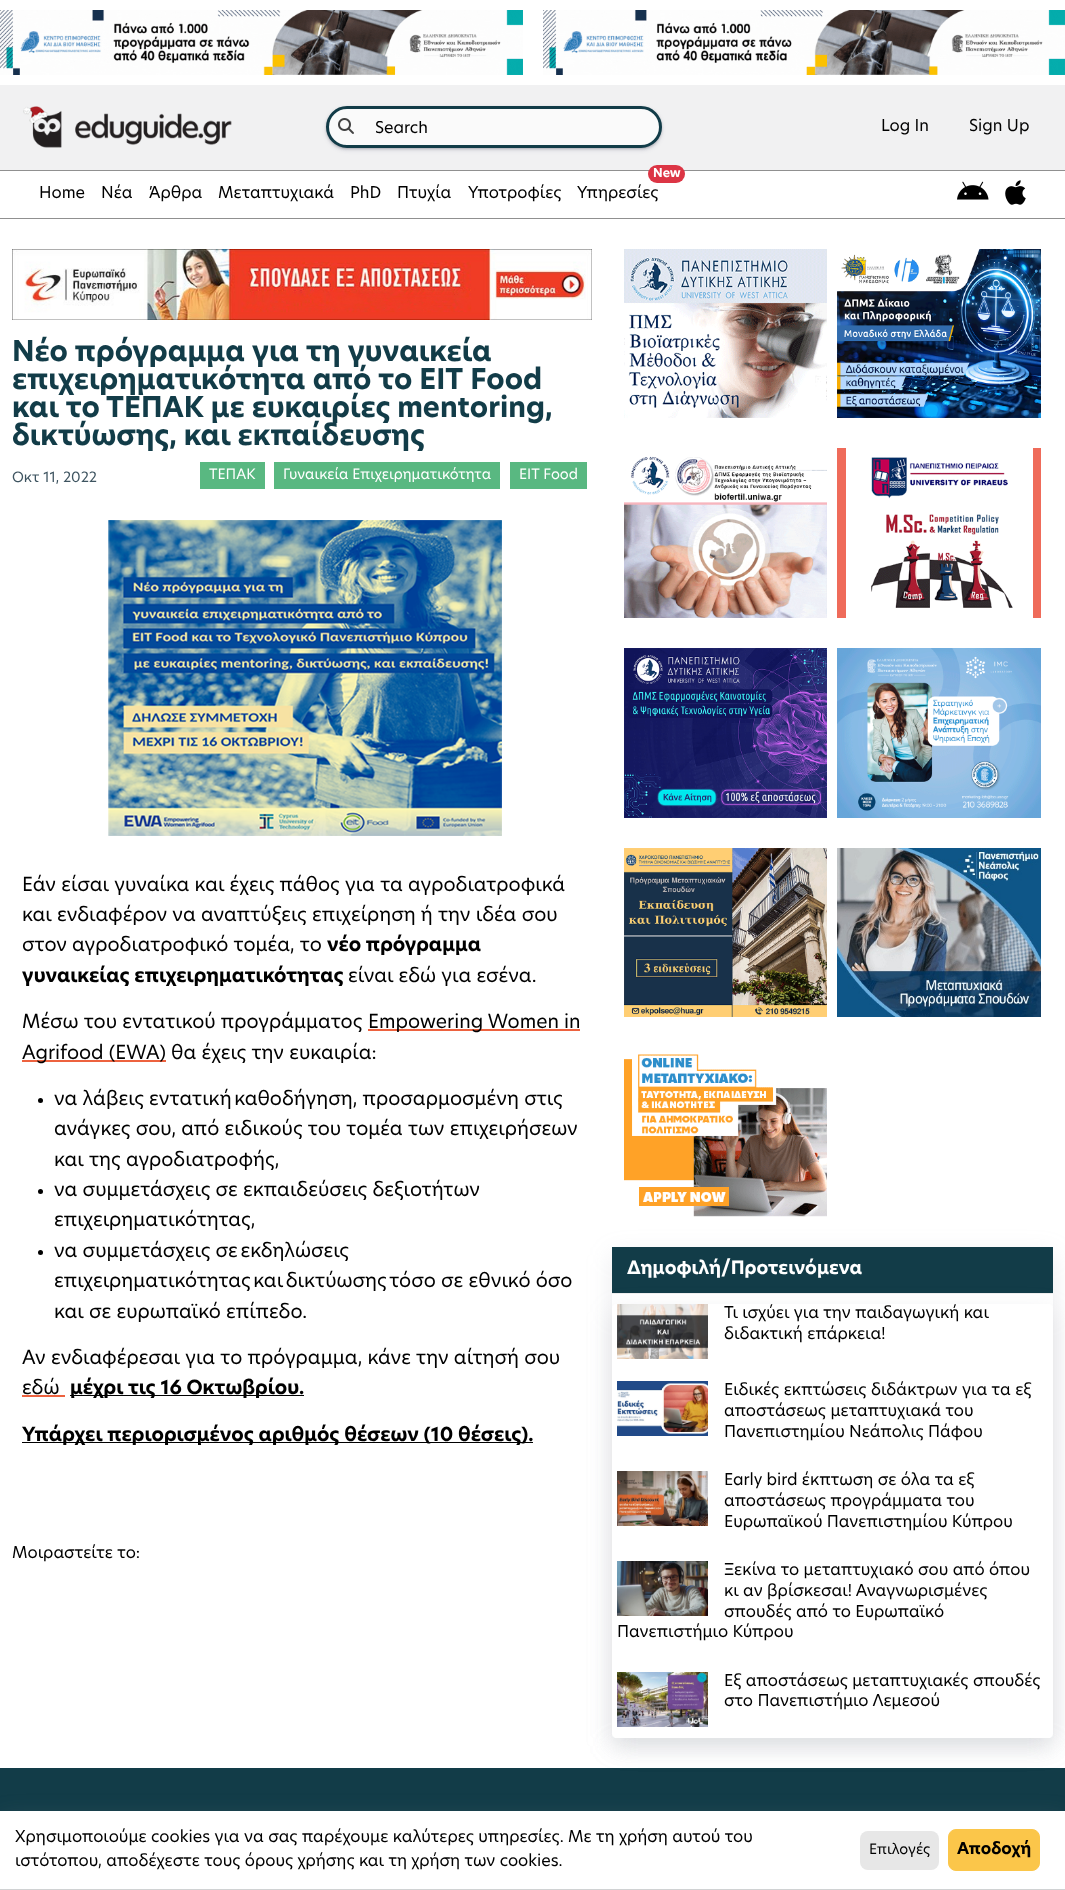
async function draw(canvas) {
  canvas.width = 1065
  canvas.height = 1890
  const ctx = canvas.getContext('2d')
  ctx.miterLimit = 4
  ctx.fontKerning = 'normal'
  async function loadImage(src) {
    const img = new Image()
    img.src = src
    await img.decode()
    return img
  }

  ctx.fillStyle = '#fff'
  ctx.fillRect(0, 0, 1065, 1890)
  ctx.drawImage(await loadImage('image0.png'), 0, 10, 523, 65)
  ctx.drawImage(await loadImage('image1.png'), 543, 10, 522, 65)
  ctx.fillStyle = '#f1f1f2'
  ctx.fillRect(0, 85, 1065, 85)
  ctx.drawImage(await loadImage('image2.png'), 23, 106, 209, 42)
  ctx.fillStyle = '#0000004d'
  ctx.filter = 'blur(1.5px)'
  ctx.beginPath()
  ctx.roundRect(327, 108, 334, 40, 20)
  ctx.fill()
  ctx.filter = 'none'
  ctx.fillStyle = '#32325d40'
  ctx.filter = 'blur(2.5px)'
  ctx.beginPath()
  ctx.roundRect(327, 109, 334, 40, 20)
  ctx.fill()
  ctx.filter = 'none'
  ctx.fillStyle = '#fafafa'
  ctx.beginPath()
  ctx.roundRect(327.5, 107.5, 333, 39, 19.5)
  ctx.fill()
  ctx.strokeStyle = '#123c48'
  ctx.lineWidth = 3
  ctx.stroke()
  ctx.drawImage(await loadImage('image3.png'), 338, 118, 16, 16)
  ctx.save()
  ctx.beginPath()
  ctx.rect(365, 121, 282, 16)
  ctx.clip()
  ctx.font = '16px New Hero'
  ctx.fillStyle = '#000'
  ctx.fillText('Search', 375, 133)
  ctx.restore()
  ctx.font = '16px New Hero'
  ctx.fillStyle = '#000'
  ctx.fillText('Log In', 881, 131)
  ctx.fillText('Sign Up', 969, 131)
  ctx.fillStyle = '#909090'
  ctx.fillRect(0, 170, 1065, 1)
  ctx.fillRect(0, 218, 1065, 1)
  ctx.fillStyle = '#000'
  ctx.fillText('Home', 39, 198)
  ctx.fillText('Νέα', 101, 198)
  ctx.fillText('Άρθρα', 149, 198)
  ctx.fillText('Μεταπτυχιακά', 218, 198)
  ctx.fillText('PhD', 350, 198)
  ctx.fillText('Πτυχία', 397, 198)
  ctx.fillText('Υποτροφίες', 468, 198)
  ctx.fillStyle = '#dc3545'
  ctx.beginPath()
  ctx.roundRect(648, 165, 37, 18, 9)
  ctx.fill()
  ctx.font = 'bold 12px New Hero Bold'
  ctx.fillStyle = '#fff'
  ctx.fillText('New', 653, 177)
  ctx.font = '16px New Hero'
  ctx.fillStyle = '#000'
  ctx.fillText('Υπηρεσίες', 577, 198)
  ctx.drawImage(await loadImage('image4.png'), 957, 181, 32, 19)
  ctx.drawImage(await loadImage('image5.png'), 1005, 180, 21, 25)
  ctx.drawImage(await loadImage('image6.png'), 12, 249, 580, 71)
  ctx.font = 'bold 28px New Hero Bold'
  ctx.fillStyle = '#123c48'
  ctx.fillText('Νέο πρόγραμμα για τη γυναικεία', 12, 361)
  ctx.fillText('επιχειρηματικότητα από το ΕΙΤ Food', 12, 389)
  ctx.fillText('και το ΤΕΠΑΚ με ευκαιρίες mentoring,', 12, 417)
  ctx.fillText('δικτύωσης, και εκπαίδευσης', 12, 445)
  ctx.font = '14px New Hero'
  ctx.fillStyle = '#3e5460'
  ctx.fillText('Οκτ 11, 2022', 12, 482)
  ctx.fillStyle = '#59b881'
  ctx.fillRect(200, 462, 65, 27)
  ctx.fillStyle = '#fff'
  ctx.fillText('ΤΕΠΑΚ', 209, 479)
  ctx.fillStyle = '#59b881'
  ctx.fillRect(274, 462, 226, 27)
  ctx.fillStyle = '#fff'
  ctx.fillText('Γυναικεία Επιχειρηματικότητα', 283, 479)
  ctx.fillStyle = '#59b881'
  ctx.fillRect(510, 462, 77, 27)
  ctx.fillStyle = '#fff'
  ctx.fillText('EIT Food', 519, 479)
  ctx.drawImage(await loadImage('image7.png'), 108, 520, 394, 316)
  ctx.font = '19px New Hero'
  ctx.fillStyle = '#000'
  ctx.fillText('Εάν είσαι γυναίκα και έχεις πάθος για τα αγροδιατροφικά', 22, 891)
  ctx.fillText('και ενδιαφέρον να αναπτύξεις επιχείρηση ή την ιδέα σου', 22, 921)
  ctx.fillText('στον αγροδιατροφικό τομέα, το', 22, 951)
  ctx.font = 'bold 19px New Hero Bold'
  ctx.fillText('νέο πρόγραμμα', 327, 951)
  ctx.fillText('γυναικείας επιχειρηματικότητας', 22, 982)
  ctx.font = '19px New Hero'
  ctx.fillText('είναι εδώ για εσένα.', 348, 982)
  ctx.fillText('Μέσω του εντατικού προγράμματος', 22, 1028)
  ctx.fillStyle = '#ed623f'
  ctx.fillRect(368, 1029, 212, 2)
  ctx.fillStyle = '#000'
  ctx.fillText('Empowering Women in', 368, 1028)
  ctx.fillStyle = '#ed623f'
  ctx.fillRect(22, 1060, 144, 2)
  ctx.fillStyle = '#000'
  ctx.fillText('Agrifood (EWA)', 22, 1059)
  ctx.fillText('θα έχεις την ευκαιρία:', 171, 1059)
  ctx.beginPath()
  ctx.arc(40.5, 1100.5, 2.5, 0, 2 * Math.PI)
  ctx.fill()
  ctx.fillText('να λάβεις εντατική καθοδήγηση, προσαρμοσμένη στις', 54, 1105)
  ctx.fillText('ανάγκες σου, από ειδικούς του τομέα των επιχειρήσεων', 54, 1135)
  ctx.fillText('και της αγροδιατροφής,', 54, 1166)
  ctx.beginPath()
  ctx.arc(40.5, 1191.5, 2.5, 0, 2 * Math.PI)
  ctx.fill()
  ctx.fillText('να συμμετάσχεις σε εκπαιδεύσεις δεξιοτήτων', 54, 1196)
  ctx.fillText('επιχειρηματικότητας,', 54, 1226)
  ctx.beginPath()
  ctx.arc(40.5, 1252.5, 2.5, 0, 2 * Math.PI)
  ctx.fill()
  ctx.fillText('να συμμετάσχεις σε εκδηλώσεις', 54, 1257)
  ctx.fillText('επιχειρηματικότητας και δικτύωσης τόσο σε εθνικό όσο', 54, 1287)
  ctx.fillText('και σε ευρωπαϊκό επίπεδο.', 54, 1318)
  ctx.fillText('Αν ενδιαφέρεσαι για το πρόγραμμα, κάνε την αίτησή σου', 22, 1364)
  ctx.fillText('εδώ', 22, 1394)
  ctx.fillStyle = '#ed623f'
  ctx.fillRect(22, 1395, 43, 2)
  ctx.fillStyle = '#000'
  ctx.fillRect(70, 1395, 234, 1)
  ctx.font = 'bold 19px New Hero Bold'
  ctx.fillText('μέχρι τις 16 Οκτωβρίου.', 70, 1394)
  ctx.fillRect(22, 1442, 511, 1)
  ctx.fillText('Υπάρχει περιορισμένος αριθμός θέσεων (10 θέσεις).', 22, 1441)
  ctx.font = '16px New Hero'
  ctx.fillText('Μοιραστείτε το:', 12, 1558)
  ctx.drawImage(await loadImage('image8.png'), 624, 249, 203, 169)
  ctx.drawImage(await loadImage('image9.png'), 624, 456, 203, 162)
  ctx.drawImage(await loadImage('image10.png'), 624, 648, 203, 170)
  ctx.drawImage(await loadImage('image11.png'), 624, 848, 203, 169)
  ctx.drawImage(await loadImage('image12.png'), 837, 249, 204, 169)
  ctx.drawImage(await loadImage('image13.png'), 837, 448, 204, 170)
  ctx.drawImage(await loadImage('image14.png'), 837, 648, 204, 170)
  ctx.drawImage(await loadImage('image15.png'), 837, 848, 204, 169)
  ctx.drawImage(await loadImage('image16.png'), 624, 1054, 203, 163)
  ctx.fillStyle = '#123c48'
  ctx.fillRect(0, 1768, 1065, 43)
  ctx.save()
  ctx.beginPath()
  ctx.moveTo(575, 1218)
  ctx.lineTo(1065, 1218)
  ctx.lineTo(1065, 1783)
  ctx.lineTo(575, 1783)
  ctx.closePath()
  ctx.moveTo(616, 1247)
  ctx.lineTo(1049, 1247)
  ctx.bezierCurveTo(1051, 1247, 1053, 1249, 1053, 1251)
  ctx.lineTo(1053, 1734)
  ctx.bezierCurveTo(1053, 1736, 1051, 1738, 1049, 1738)
  ctx.lineTo(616, 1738)
  ctx.bezierCurveTo(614, 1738, 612, 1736, 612, 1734)
  ctx.lineTo(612, 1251)
  ctx.bezierCurveTo(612, 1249, 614, 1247, 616, 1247)
  ctx.closePath()
  ctx.clip('evenodd')
  ctx.fillStyle = '#959da533'
  ctx.filter = 'blur(12px)'
  ctx.beginPath()
  ctx.roundRect(612, 1255, 441, 491, 4)
  ctx.fill()
  ctx.filter = 'none'
  ctx.restore()
  ctx.fillRect(612, 1247, 441, 46)
  ctx.fillStyle = '#eee'
  ctx.fillRect(612, 1293, 441, 1)
  ctx.save()
  ctx.beginPath()
  ctx.moveTo(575, 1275)
  ctx.lineTo(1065, 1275)
  ctx.lineTo(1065, 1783)
  ctx.lineTo(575, 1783)
  ctx.closePath()
  ctx.moveTo(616, 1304)
  ctx.lineTo(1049, 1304)
  ctx.bezierCurveTo(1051, 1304, 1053, 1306, 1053, 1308)
  ctx.lineTo(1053, 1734)
  ctx.bezierCurveTo(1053, 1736, 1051, 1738, 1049, 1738)
  ctx.lineTo(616, 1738)
  ctx.bezierCurveTo(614, 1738, 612, 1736, 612, 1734)
  ctx.lineTo(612, 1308)
  ctx.bezierCurveTo(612, 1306, 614, 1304, 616, 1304)
  ctx.closePath()
  ctx.clip('evenodd')
  ctx.fillStyle = '#959da533'
  ctx.filter = 'blur(12px)'
  ctx.beginPath()
  ctx.roundRect(612, 1312, 441, 434, 4)
  ctx.fill()
  ctx.filter = 'none'
  ctx.restore()
  ctx.font = 'bold 18px New Hero Bold'
  ctx.fillStyle = '#fff'
  ctx.fillText('Δημοφιλή/Προτεινόμενα', 627, 1274)
  ctx.drawImage(await loadImage('image17.png'), 617, 1304, 91, 55)
  ctx.font = '16px New Hero'
  ctx.fillStyle = '#000'
  ctx.fillText('Τι ισχύει για την παιδαγωγική και', 724, 1318)
  ctx.fillText('διδακτική επάρκεια!', 724, 1339)
  ctx.drawImage(await loadImage('image18.png'), 617, 1381, 91, 55)
  ctx.fillText('Ειδικές εκπτώσεις διδάκτρων για τα εξ', 724, 1395)
  ctx.fillText('αποστάσεως μεταπτυχιακά του', 724, 1416)
  ctx.fillText('Πανεπιστημίου Νεάπολις Πάφου', 724, 1437)
  ctx.drawImage(await loadImage('image19.png'), 617, 1471, 91, 55)
  ctx.fillText('Early bird έκπτωση σε όλα τα εξ', 724, 1485)
  ctx.fillText('αποστάσεως προγράμματα του', 724, 1506)
  ctx.fillText('Ευρωπαϊκού Πανεπιστημίου Κύπρου', 724, 1527)
  ctx.drawImage(await loadImage('image20.png'), 617, 1561, 91, 55)
  ctx.fillText('Ξεκίνα το μεταπτυχιακό σου από όπου', 724, 1575)
  ctx.fillText('κι αν βρίσκεσαι! Αναγνωρισμένες', 724, 1596)
  ctx.fillText('σπουδές από το Ευρωπαϊκό', 724, 1617)
  ctx.fillText('Πανεπιστήμιο Κύπρου', 617, 1637)
  ctx.drawImage(await loadImage('image21.png'), 617, 1672, 91, 55)
  ctx.fillText('Εξ αποστάσεως μεταπτυχιακές σπουδές', 724, 1686)
  ctx.fillText('στο Πανεπιστήμιο Λεμεσού', 724, 1706)
  ctx.fillStyle = '#959da533'
  ctx.filter = 'blur(12px)'
  ctx.beginPath()
  ctx.rect(0, 1819, 1065, 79)
  ctx.fill()
  ctx.filter = 'none'
  ctx.fillStyle = '#fff'
  ctx.fillRect(0, 1811, 1065, 78)
  ctx.fillStyle = '#d0d2d3'
  ctx.fillRect(0, 1889, 1065, 1)
  ctx.fillStyle = '#000'
  ctx.fillText('Χρησιμοποιούμε cookies για να σας παρέχουμε καλύτερες υπηρεσίες. Με τη χρήση αυτού του', 15, 1842)
  ctx.fillText('ιστότοπου, αποδέχεστε τους όρους χρήσης και τη χρήση των cookies.', 15, 1866)
  ctx.fillStyle = '#e7e7e7'
  ctx.beginPath()
  ctx.roundRect(860, 1831, 79, 39, 8)
  ctx.fill()
  ctx.font = '14px New Hero'
  ctx.fillStyle = '#000'
  ctx.fillText('Επιλογές', 869, 1854)
  ctx.fillStyle = '#fbc64a'
  ctx.beginPath()
  ctx.roundRect(948.5, 1829.5, 91, 41, 7.5)
  ctx.fill()
  ctx.strokeStyle = '#fbc64a'
  ctx.lineWidth = 1
  ctx.stroke()
  ctx.font = 'bold 16px New Hero Bold'
  ctx.fillStyle = '#000'
  ctx.fillText('Αποδοχή', 957, 1854)
}

draw(document.querySelector('canvas'))
